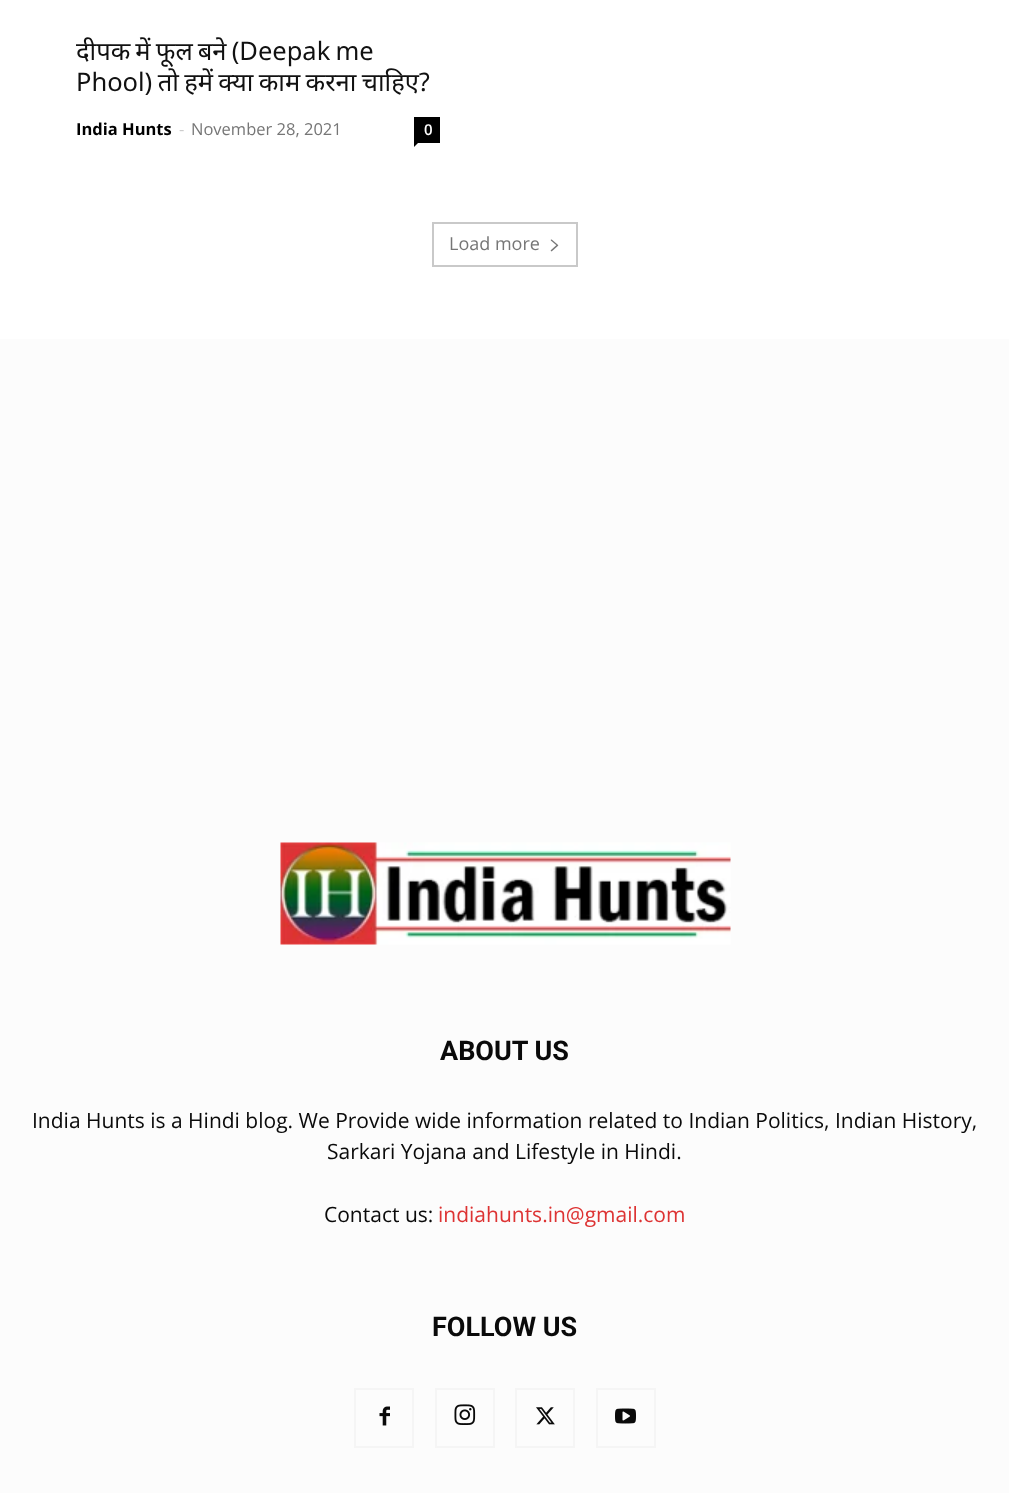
async function draw(canvas) {
  canvas.width = 1009
  canvas.height = 1493
  const ctx = canvas.getContext('2d')
  ctx.miterLimit = 4
  ctx.fontKerning = 'normal'
  async function loadImage(src) {
    const img = new Image()
    img.src = src
    await img.decode()
    return img
  }

  ctx.fillStyle = '#fff'
  ctx.fillRect(0, 0, 1009, 1493)
  ctx.wordSpacing = '-1.5px'
  ctx.font = '25.5px Noto Sans'
  ctx.fillStyle = '#111'
  ctx.fillText('दीपक में फूल बने (Deepak me', 76, 60)
  ctx.wordSpacing = '-1.25px'
  ctx.fillText('Phool) तो हमें क्या काम करना चाहिए?', 76, 91)
  ctx.wordSpacing = '0px'
  ctx.font = 'bold 16.5px Open Sans'
  ctx.fillStyle = '#000'
  ctx.fillText('India Hunts', 76, 135)
  ctx.font = '16.5px Open Sans'
  ctx.fillStyle = '#ccc'
  ctx.fillText('-', 179, 135)
  ctx.fillStyle = '#767676'
  ctx.fillText('November 28, 2021', 191, 135)
  ctx.fillStyle = '#000'
  ctx.fillRect(414, 117, 26, 26)
  ctx.font = '600 15px Open Sans'
  ctx.fillStyle = '#fff'
  ctx.fillText('0', 424, 135)
  ctx.fillStyle = '#000'
  ctx.beginPath()
  ctx.moveTo(414, 142.5)
  ctx.lineTo(418.5, 142.5)
  ctx.lineTo(414, 147)
  ctx.closePath()
  ctx.fill()
  ctx.strokeStyle = '#c9c9c9'
  ctx.lineWidth = 2
  ctx.strokeRect(433, 223, 144, 43)
  ctx.font = '18px Open Sans'
  ctx.fillStyle = '#767676'
  ctx.fillText('Load more', 449, 250)
  ctx.drawImage(await loadImage('image0.png'), 550, 239, 9, 13)
  ctx.fillStyle = '#fcfcfc'
  ctx.fillRect(0, 339, 1009, 1154)
  ctx.drawImage(await loadImage('image1.png'), 280, 842, 451, 103)
  ctx.font = 'bold 27px Roboto'
  ctx.fillStyle = '#0a0a0a'
  ctx.fillText('ABOUT US', 440, 1060)
  ctx.font = '21px Open Sans'
  ctx.fillText('India Hunts is a Hindi blog. We Provide wide information related to Indian Politics, Indian History,', 32, 1128)
  ctx.fillText('Sarkari Yojana and Lifestyle in Hindi.', 327, 1159)
  ctx.fillText('Contact us:', 324, 1222)
  ctx.fillStyle = '#d33'
  ctx.fillText('indiahunts.in@gmail.com', 438, 1222)
  ctx.font = 'bold 27px Roboto'
  ctx.fillStyle = '#0a0a0a'
  ctx.fillText('FOLLOW US', 432, 1336)
  ctx.drawImage(await loadImage('image2.png'), 379, 1406, 11, 20)
  ctx.strokeStyle = '#f5f5f5'
  ctx.strokeRect(355, 1389, 58, 58)
  ctx.drawImage(await loadImage('image3.png'), 454, 1404, 22, 21)
  ctx.strokeRect(436, 1389, 58, 58)
  ctx.drawImage(await loadImage('image4.png'), 536, 1407, 19, 18)
  ctx.strokeRect(516, 1389, 58, 58)
  ctx.drawImage(await loadImage('image5.png'), 615, 1408, 21, 16)
  ctx.strokeRect(597, 1389, 58, 58)
}

draw(document.querySelector('canvas'))
